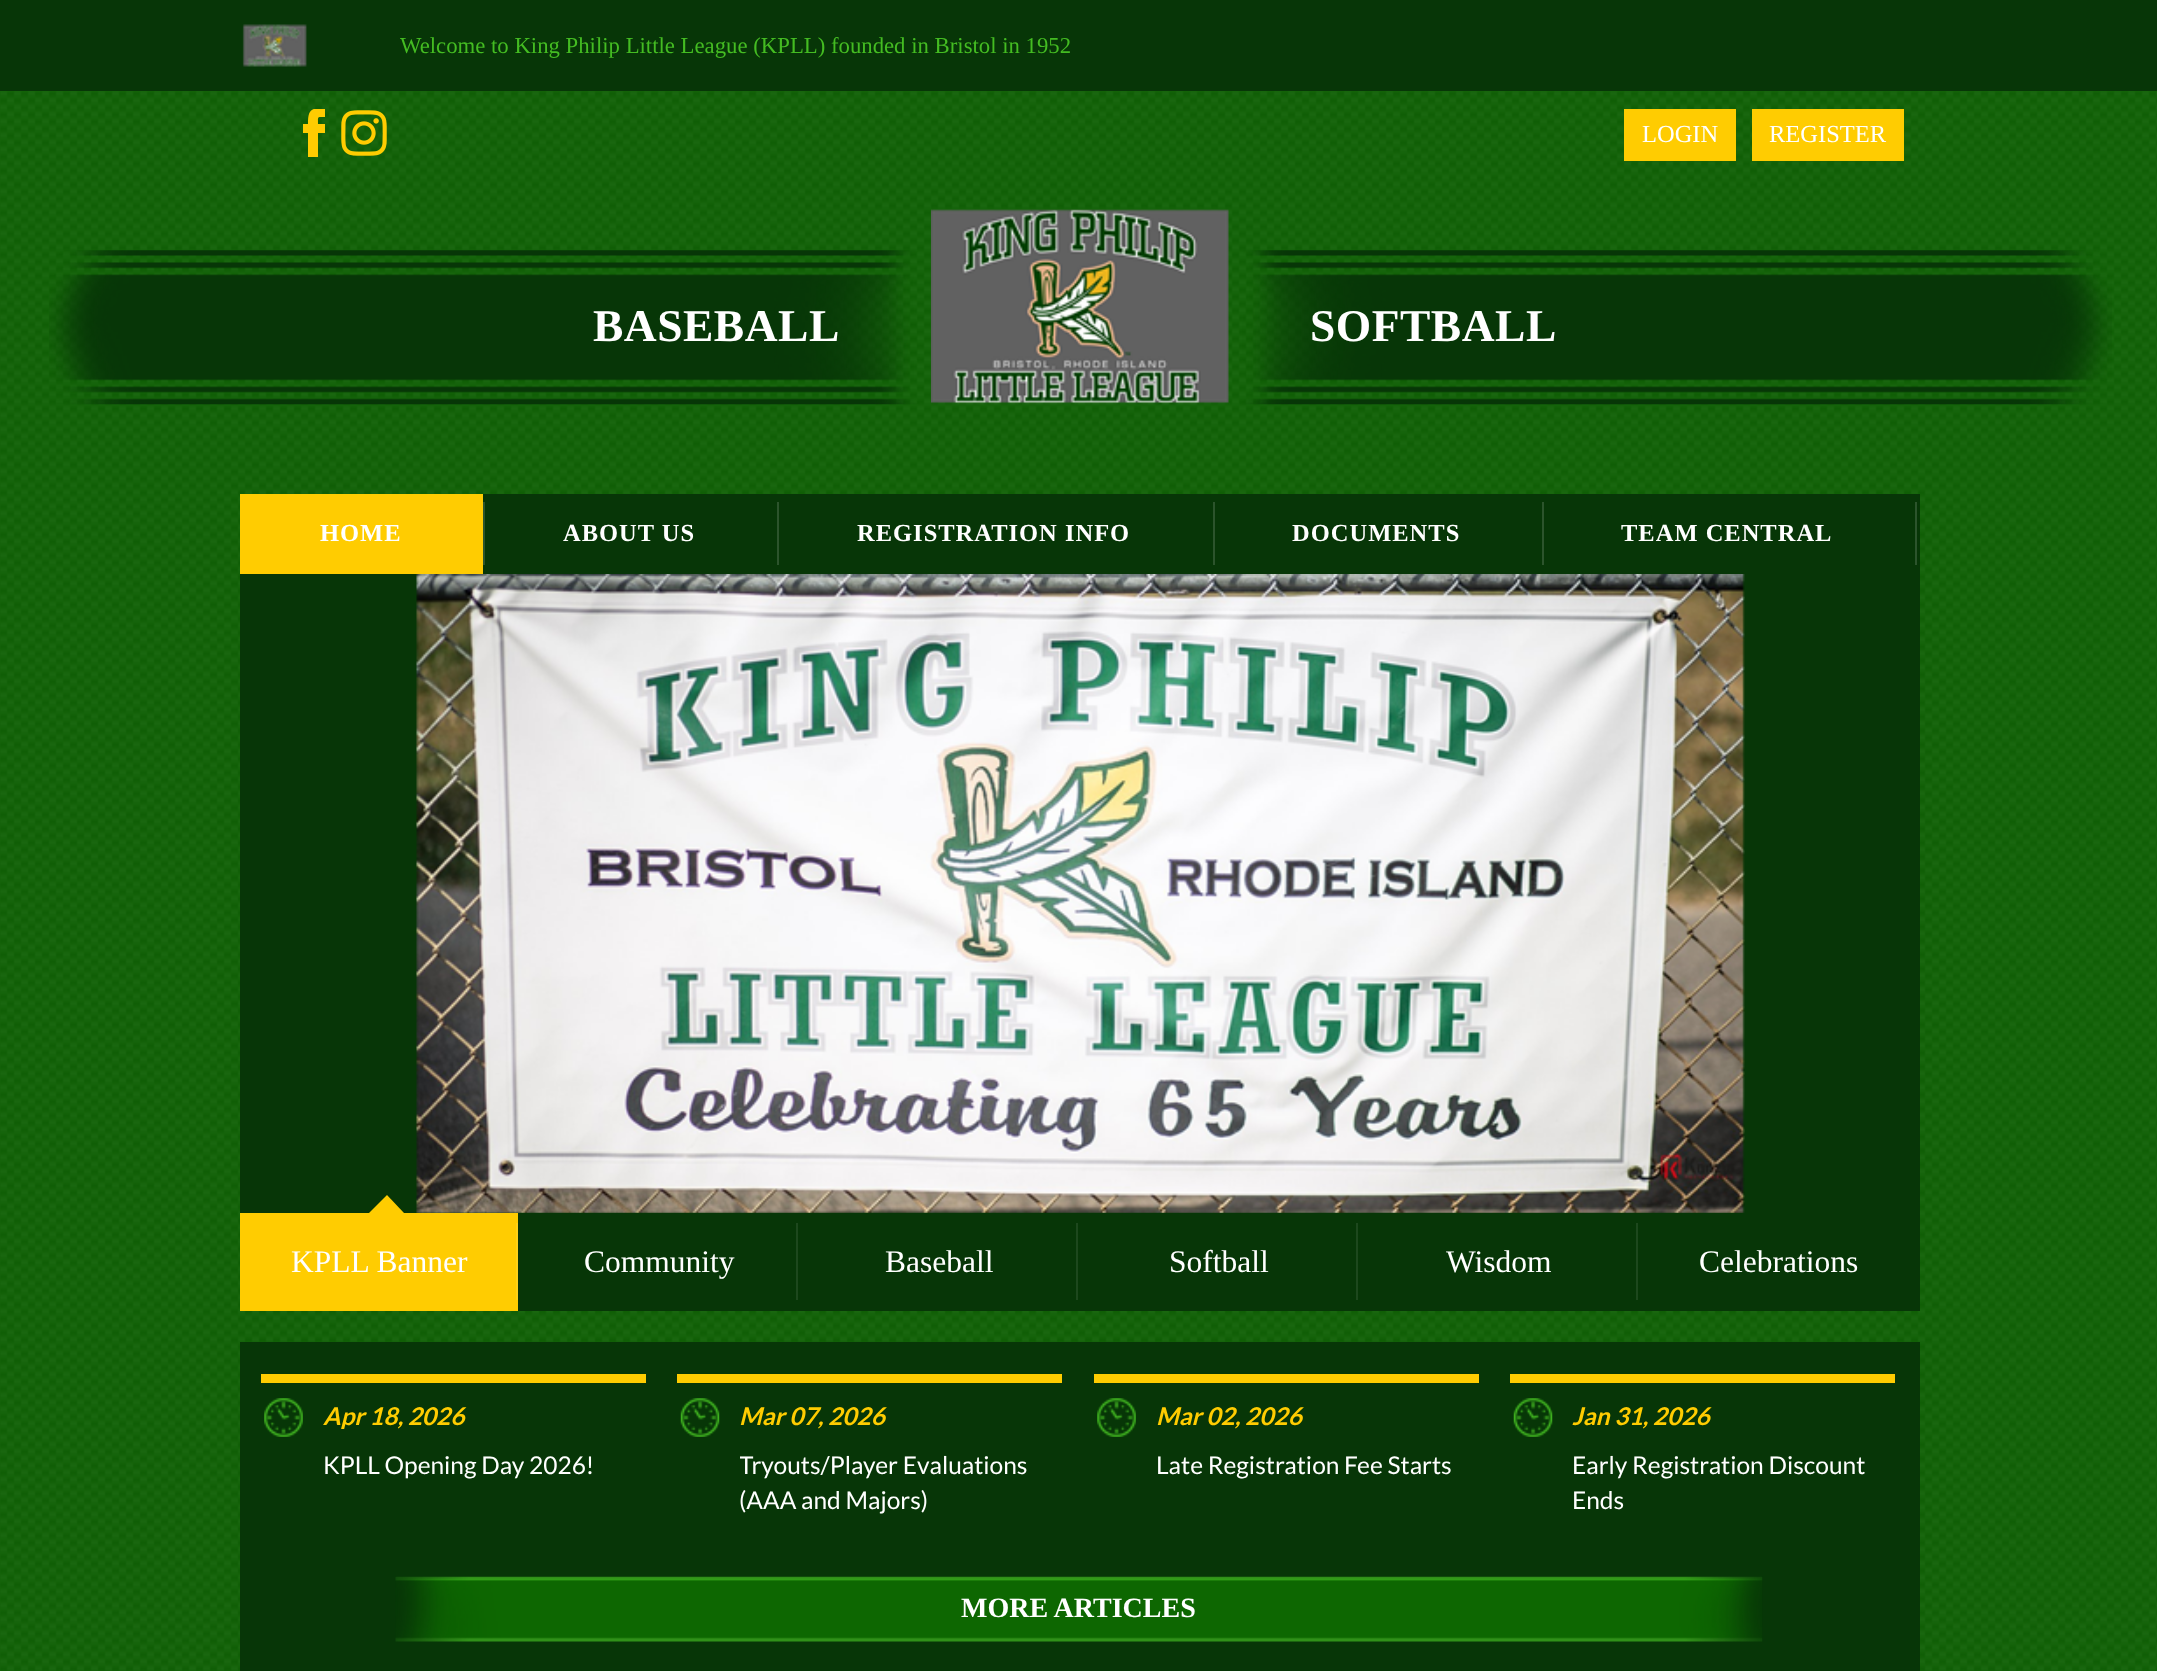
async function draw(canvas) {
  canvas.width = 2157
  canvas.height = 1671
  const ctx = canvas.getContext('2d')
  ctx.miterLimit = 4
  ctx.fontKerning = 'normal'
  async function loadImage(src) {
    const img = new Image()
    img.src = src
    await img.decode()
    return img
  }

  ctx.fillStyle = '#fff'
  ctx.fillRect(0, 0, 2157, 1671)
  ctx.drawImage(await loadImage('image0.png'), 0, 91, 2157, 1580)
  ctx.fillStyle = '#073607'
  ctx.fillRect(0, 0, 2157, 91)
  ctx.drawImage(await loadImage('image1.png'), 242, 24, 65, 43)
  ctx.font = '22.75px Liberation Serif'
  ctx.fillStyle = '#44bc22'
  ctx.fillText('Welcome to King Philip Little League (KPLL) founded in Bristol in 1952', 400, 53)
  ctx.save()
  ctx.beginPath()
  ctx.rect(303, 109, 23, 49)
  ctx.clip()
  ctx.fillStyle = '#ffcc01'
  ctx.beginPath()
  ctx.moveTo(325, 133)
  ctx.lineTo(318, 133)
  ctx.lineTo(318, 157)
  ctx.lineTo(308, 157)
  ctx.lineTo(308, 133)
  ctx.lineTo(303, 133)
  ctx.lineTo(303, 124)
  ctx.lineTo(308, 124)
  ctx.bezierCurveTo(308, 109, 311, 108, 325, 108)
  ctx.lineTo(325, 117)
  ctx.bezierCurveTo(317, 117, 318, 116, 318, 124)
  ctx.lineTo(325, 124)
  ctx.closePath()
  ctx.fill()
  ctx.restore()
  ctx.drawImage(await loadImage('image2.png'), 341, 110, 46, 46)
  ctx.fillStyle = '#ffcc01'
  ctx.fillRect(1624, 109, 112, 52)
  ctx.font = '24.5px Liberation Serif'
  ctx.fillStyle = '#fff'
  ctx.fillText('LOGIN', 1642, 142)
  ctx.fillStyle = '#ffcc01'
  ctx.fillRect(1752, 109, 152, 52)
  ctx.fillStyle = '#fff'
  ctx.fillText('REGISTER', 1769, 142)
  ctx.drawImage(await loadImage('image3.png'), 49, 250, 2063, 155)
  ctx.drawImage(await loadImage('image4.png'), 931, 209, 298, 196)
  ctx.letterSpacing = '0.5px'
  ctx.font = 'bold 45.5px Liberation Serif'
  ctx.fillText('BASEBALL', 593, 341)
  ctx.fillText('SOFTBALL', 1310, 341)
  ctx.fillStyle = '#073607'
  ctx.fillRect(483, 494, 1437, 80)
  ctx.fillStyle = '#ffcc01'
  ctx.fillRect(240, 494, 243, 80)
  ctx.letterSpacing = '1px'
  ctx.font = 'bold 24.5px Liberation Serif'
  ctx.fillStyle = '#fff'
  ctx.fillText('HOME', 320, 541)
  ctx.fillStyle = '#2c542c'
  ctx.fillRect(483, 502, 2, 63)
  ctx.fillStyle = '#fff'
  ctx.fillText('ABOUT US', 563, 541)
  ctx.fillStyle = '#2c542c'
  ctx.fillRect(777, 502, 2, 63)
  ctx.fillStyle = '#fff'
  ctx.fillText('REGISTRATION INFO', 857, 541)
  ctx.fillStyle = '#2c542c'
  ctx.fillRect(1213, 502, 2, 63)
  ctx.fillStyle = '#fff'
  ctx.fillText('DOCUMENTS', 1292, 541)
  ctx.fillStyle = '#2c542c'
  ctx.fillRect(1542, 502, 2, 63)
  ctx.fillStyle = '#fff'
  ctx.fillText('TEAM CENTRAL', 1621, 541)
  ctx.fillStyle = '#2c542c'
  ctx.fillRect(1915, 502, 2, 63)
  ctx.fillStyle = '#073607'
  ctx.fillRect(240, 574, 1680, 737)
  ctx.drawImage(await loadImage('image5.png'), 416, 574, 1329, 639)
  ctx.fillStyle = '#ffcc01'
  ctx.fillRect(240, 1213, 278, 98)
  ctx.beginPath()
  ctx.moveTo(404, 1213)
  ctx.lineTo(369, 1213)
  ctx.lineTo(387, 1195)
  ctx.closePath()
  ctx.fill()
  ctx.letterSpacing = '0px'
  ctx.font = '31.5px Liberation Serif'
  ctx.fillStyle = '#fff'
  ctx.fillText('KPLL Banner', 291, 1272)
  ctx.fillStyle = '#ffd118'
  ctx.fillRect(516, 1223, 2, 77)
  ctx.fillStyle = '#fff'
  ctx.fillText('Community', 584, 1272)
  ctx.fillStyle = '#1d481d'
  ctx.fillRect(796, 1223, 2, 77)
  ctx.fillStyle = '#fff'
  ctx.fillText('Baseball', 885, 1272)
  ctx.fillStyle = '#1d481d'
  ctx.fillRect(1076, 1223, 2, 77)
  ctx.fillStyle = '#fff'
  ctx.fillText('Softball', 1169, 1272)
  ctx.fillStyle = '#1d481d'
  ctx.fillRect(1356, 1223, 2, 77)
  ctx.fillStyle = '#fff'
  ctx.fillText('Wisdom', 1446, 1272)
  ctx.fillStyle = '#1d481d'
  ctx.fillRect(1636, 1223, 2, 77)
  ctx.fillStyle = '#fff'
  ctx.fillText('Celebrations', 1699, 1272)
  ctx.fillStyle = '#073607'
  ctx.fillRect(240, 1342, 1680, 329)
  ctx.fillStyle = '#ffcc01'
  ctx.fillRect(261, 1374, 385, 9)
  ctx.drawImage(await loadImage('image6.png'), 264, 1398, 39, 39)
  ctx.font = 'italic bold 24.5px Lato'
  ctx.fillText('Apr 18, 2026', 323, 1425)
  ctx.font = '24.5px Lato'
  ctx.fillStyle = '#fff'
  ctx.fillText('KPLL Opening Day 2026!', 323, 1474)
  ctx.fillStyle = '#ffcc01'
  ctx.fillRect(677, 1374, 385, 9)
  ctx.drawImage(await loadImage('image7.png'), 680, 1398, 40, 39)
  ctx.font = 'italic bold 24.5px Lato'
  ctx.fillText('Mar 07, 2026', 739, 1425)
  ctx.save()
  ctx.beginPath()
  ctx.rect(740, 1447, 322, 70)
  ctx.clip()
  ctx.font = '24.5px Lato'
  ctx.fillStyle = '#fff'
  ctx.fillText('Tryouts/Player Evaluations', 739, 1474)
  ctx.restore()
  ctx.font = '24.5px Lato'
  ctx.fillStyle = '#fff'
  ctx.fillText('(AAA and Majors)', 739, 1509)
  ctx.fillStyle = '#ffcc01'
  ctx.fillRect(1094, 1374, 385, 9)
  ctx.drawImage(await loadImage('image6.png'), 1097, 1398, 39, 39)
  ctx.font = 'italic bold 24.5px Lato'
  ctx.fillText('Mar 02, 2026', 1156, 1425)
  ctx.font = '24.5px Lato'
  ctx.fillStyle = '#fff'
  ctx.fillText('Late Registration Fee Starts', 1156, 1474)
  ctx.fillStyle = '#ffcc01'
  ctx.fillRect(1510, 1374, 385, 9)
  ctx.drawImage(await loadImage('image7.png'), 1513, 1398, 40, 39)
  ctx.font = 'italic bold 24.5px Lato'
  ctx.fillText('Jan 31, 2026', 1572, 1425)
  ctx.font = '24.5px Lato'
  ctx.fillStyle = '#fff'
  ctx.fillText('Early Registration Discount', 1572, 1474)
  ctx.fillText('Ends', 1572, 1509)
  ctx.drawImage(await loadImage('image8.png'), 395, 1576, 1368, 66)
  ctx.font = 'bold 28px Liberation Serif'
  ctx.fillText('MORE ARTICLES', 961, 1617)
}

draw(document.querySelector('canvas'))
